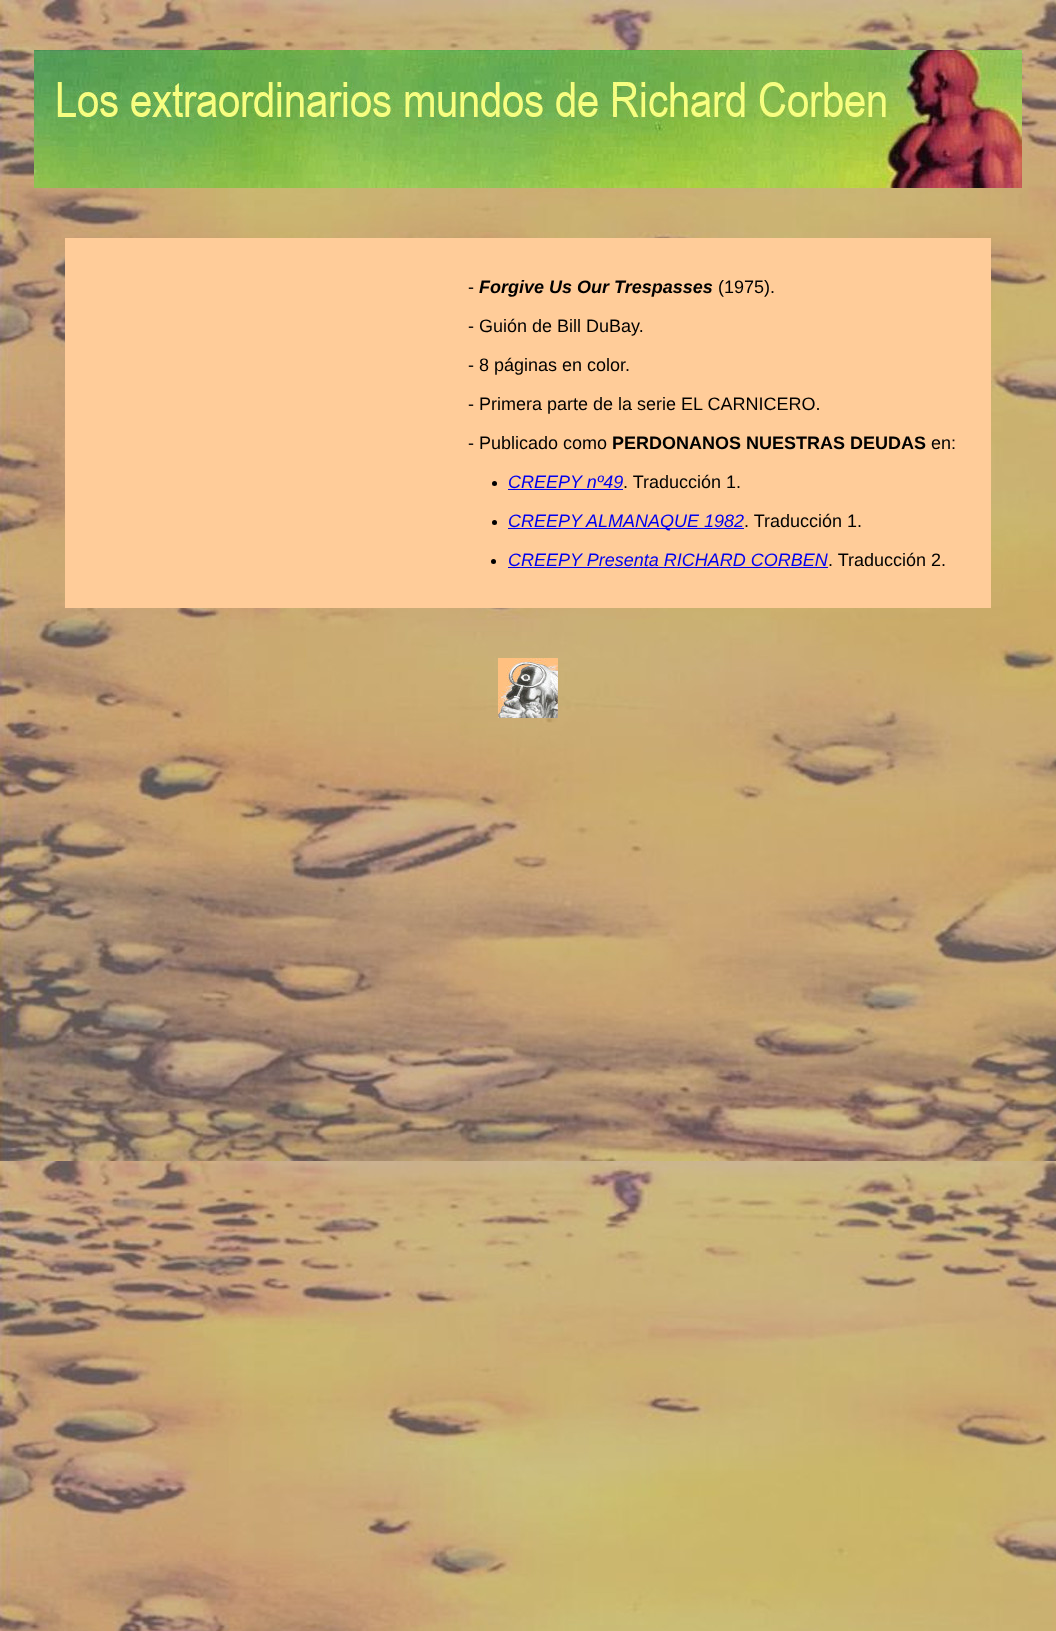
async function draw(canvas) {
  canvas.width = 1056
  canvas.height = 1631
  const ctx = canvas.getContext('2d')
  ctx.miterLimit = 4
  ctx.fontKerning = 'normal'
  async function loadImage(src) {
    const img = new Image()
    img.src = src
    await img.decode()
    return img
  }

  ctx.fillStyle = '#fff'
  ctx.fillRect(0, 0, 1056, 1631)
  ctx.drawImage(await loadImage('image0.png'), 0, 0, 1056, 1631)
  ctx.drawImage(await loadImage('image1.png'), 34, 50, 988, 138)
  ctx.fillStyle = '#fc9'
  ctx.fillRect(65, 238, 926, 370)
  ctx.font = '18px Liberation Sans'
  ctx.fillStyle = '#000'
  ctx.fillText('-', 468, 293)
  ctx.font = 'italic bold 18px Liberation Sans'
  ctx.fillText('Forgive Us Our Trespasses', 479, 293)
  ctx.font = '18px Liberation Sans'
  ctx.fillText('(1975).', 718, 293)
  ctx.fillText('- Guión de Bill DuBay.', 468, 332)
  ctx.fillText('- 8 páginas en color.', 468, 371)
  ctx.fillText('- Primera parte de la serie EL CARNICERO.', 468, 410)
  ctx.fillText('- Publicado como', 468, 449)
  ctx.font = 'bold 18px Liberation Sans'
  ctx.fillText('PERDONANOS NUESTRAS DEUDAS', 612, 449)
  ctx.font = '18px Liberation Sans'
  ctx.fillText('en:', 931, 449)
  ctx.beginPath()
  ctx.arc(494.5, 483.5, 2.5, 0, 2 * Math.PI)
  ctx.fill()
  ctx.font = 'italic 18px Liberation Sans'
  ctx.fillStyle = '#00e'
  ctx.fillText('CREEPY nº49', 508, 488)
  ctx.fillRect(508, 489, 115, 1)
  ctx.font = '18px Liberation Sans'
  ctx.fillStyle = '#000'
  ctx.fillText('. Traducción 1.', 623, 488)
  ctx.beginPath()
  ctx.arc(494.5, 522.5, 2.5, 0, 2 * Math.PI)
  ctx.fill()
  ctx.fillStyle = '#00e'
  ctx.fillRect(508, 528, 236, 1)
  ctx.font = 'italic 18px Liberation Sans'
  ctx.fillText('CREEPY ALMANAQUE 1982', 508, 527)
  ctx.font = '18px Liberation Sans'
  ctx.fillStyle = '#000'
  ctx.fillText('. Traducción 1.', 744, 527)
  ctx.beginPath()
  ctx.arc(493.5, 561.5, 2.5, 0, 2 * Math.PI)
  ctx.fill()
  ctx.font = 'italic 18px Liberation Sans'
  ctx.fillStyle = '#00e'
  ctx.fillText('CREEPY Presenta RICHARD CORBEN', 508, 566)
  ctx.fillRect(508, 567, 320, 1)
  ctx.font = '18px Liberation Sans'
  ctx.fillStyle = '#000'
  ctx.fillText('. Traducción 2.', 828, 566)
  ctx.drawImage(await loadImage('image2.png'), 498, 658, 60, 60)
}

draw(document.querySelector('canvas'))
